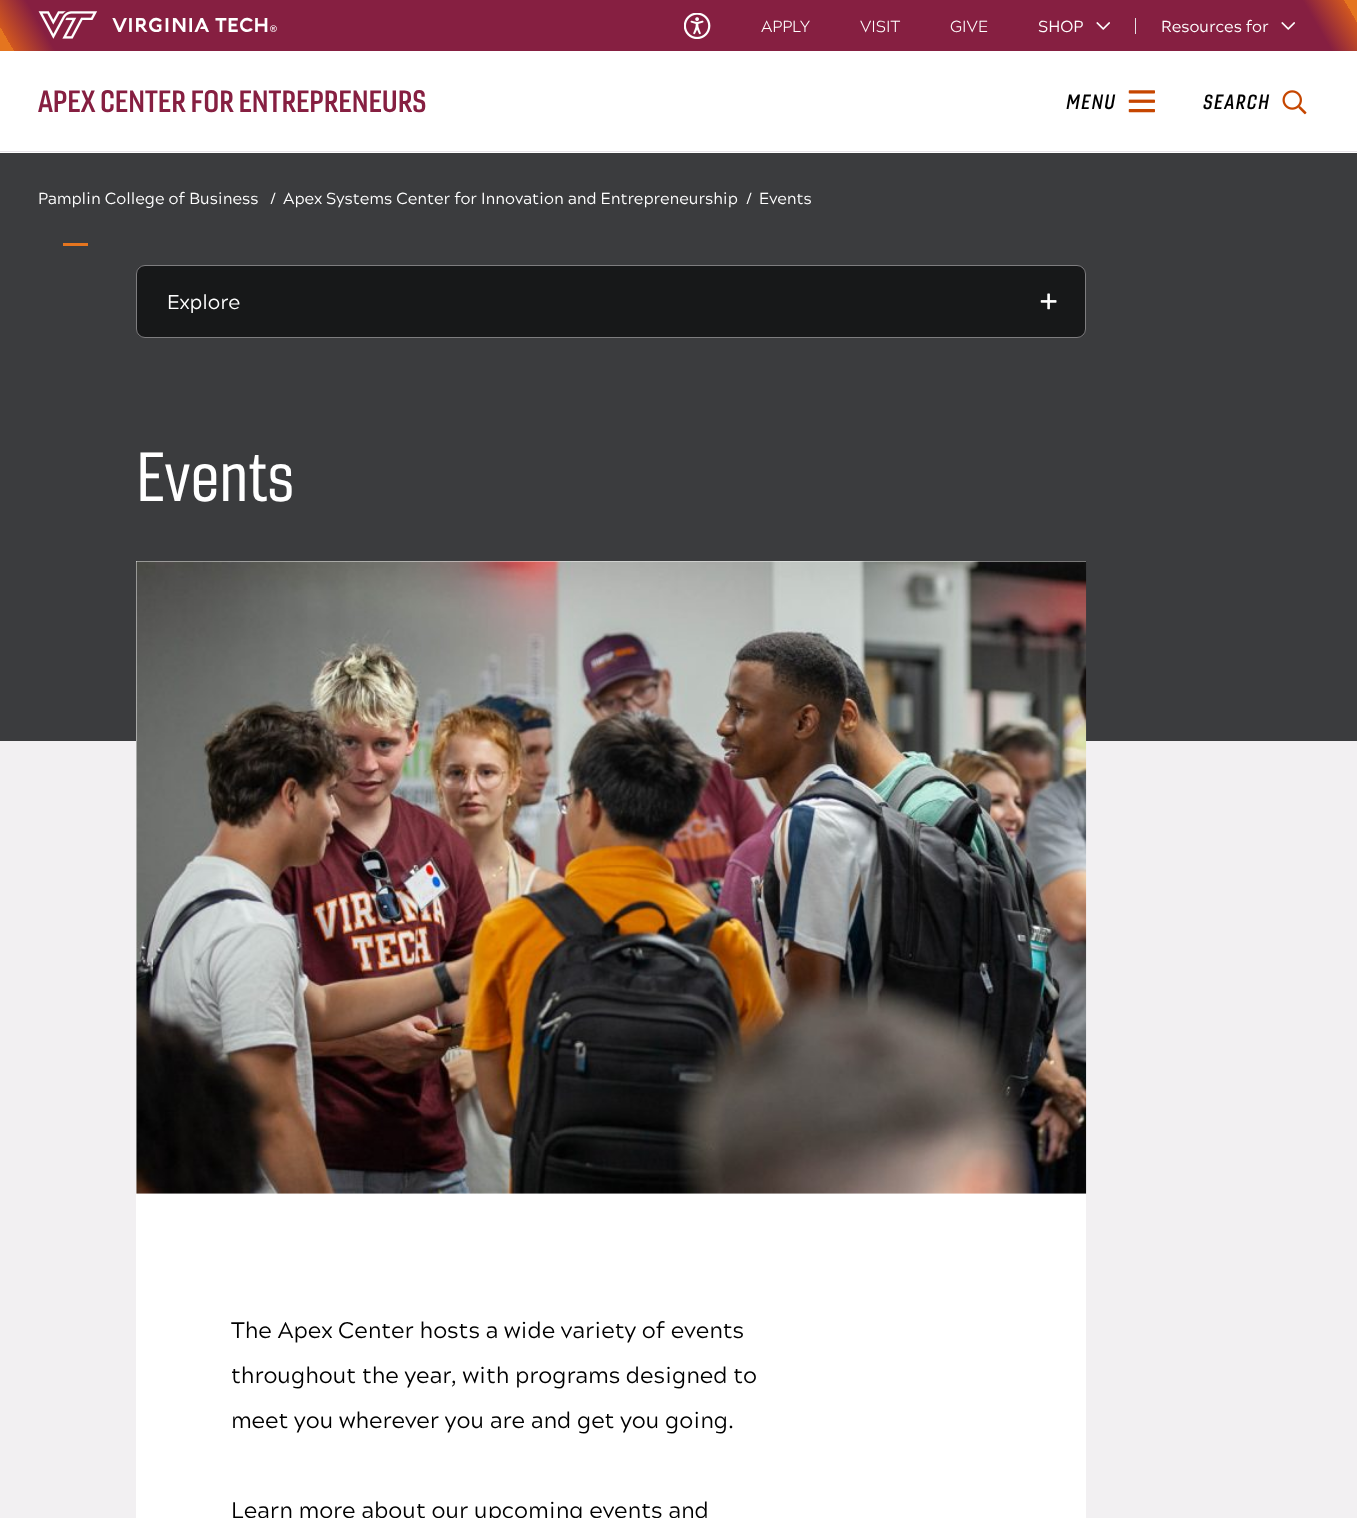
async function draw(canvas) {
  canvas.width = 1357
  canvas.height = 1518
  const ctx = canvas.getContext('2d')
  ctx.miterLimit = 4
  ctx.fontKerning = 'normal'
  async function loadImage(src) {
    const img = new Image()
    img.src = src
    await img.decode()
    return img
  }
  let gradient

  ctx.fillStyle = '#fff'
  ctx.fillRect(0, 0, 1357, 1518)
  ctx.save()
  ctx.beginPath()
  ctx.moveTo(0, 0)
  ctx.lineTo(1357, 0)
  ctx.lineTo(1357, 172)
  ctx.lineTo(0, 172)
  ctx.closePath()
  ctx.moveTo(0, 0)
  ctx.lineTo(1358, 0)
  ctx.lineTo(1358, 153)
  ctx.lineTo(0, 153)
  ctx.closePath()
  ctx.clip('evenodd')
  ctx.fillStyle = '#e5e1e6'
  ctx.filter = 'blur(6px)'
  ctx.beginPath()
  ctx.rect(0, 0, 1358, 153)
  ctx.fill()
  ctx.filter = 'none'
  ctx.restore()
  ctx.fillStyle = '#e5e1e6'
  ctx.fillRect(0, 151, 1357, 1)
  gradient = ctx.createLinearGradient(159, 326, 1199, -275)
  gradient.addColorStop(0.01, '#e5751f')
  gradient.addColorStop(0.01, '#d1571f')
  gradient.addColorStop(0.04, '#861f41')
  gradient.addColorStop(0.96, '#861f41')
  gradient.addColorStop(0.99, '#d1571f')
  gradient.addColorStop(0.99, '#e5751f')
  ctx.fillStyle = gradient
  ctx.fillRect(0, 0, 1357, 51)
  ctx.drawImage(await loadImage('image0.png'), 38, 11, 60, 28)
  ctx.font = '20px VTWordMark'
  ctx.fillStyle = '#fff'
  ctx.fillText('VIRGINIA TECH®', 112, 32)
  ctx.drawImage(await loadImage('image1.png'), 684, 13, 27, 26)
  ctx.font = '300 16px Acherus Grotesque'
  ctx.fillText('APPLY', 761, 32)
  ctx.fillText('VISIT', 860, 32)
  ctx.fillText('GIVE', 950, 32)
  ctx.font = '16px Acherus Grotesque'
  ctx.fillText('SHOP', 1038, 32)
  ctx.drawImage(await loadImage('image2.png'), 1096, 22, 14, 8)
  ctx.fillStyle = '#e5e1e6'
  ctx.fillRect(1135, 18, 1, 16)
  ctx.fillStyle = '#fff'
  ctx.fillText('Resources for', 1161, 32)
  ctx.drawImage(await loadImage('image2.png'), 1281, 22, 14, 8)
  ctx.font = 'bold 30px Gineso'
  ctx.fillStyle = '#861f41'
  ctx.fillText('APEX CENTER FOR ENTREPRENEURS', 38, 112)
  ctx.letterSpacing = '1.5px'
  ctx.font = 'italic bold 20px Gineso'
  ctx.fillStyle = '#000'
  ctx.fillText('MENU', 1066, 109)
  ctx.drawImage(await loadImage('image3.png'), 1128, 90, 27, 23)
  ctx.fillText('SEARCH', 1203, 109)
  ctx.drawImage(await loadImage('image4.png'), 1282, 90, 25, 25)
  ctx.fillStyle = '#3b3c3e'
  ctx.fillRect(0, 153, 1357, 588)
  ctx.letterSpacing = '0px'
  ctx.font = '16px Acherus Grotesque'
  ctx.fillStyle = '#fff'
  ctx.fillText('Pamplin College of Business', 38, 204)
  ctx.fillText('/', 270, 204)
  ctx.fillText('Apex Systems Center for Innovation and Entrepreneurship', 283, 204)
  ctx.fillText('/', 746, 204)
  ctx.fillText('Events', 759, 204)
  ctx.fillStyle = '#e5751f'
  ctx.fillRect(63, 243, 25, 3)
  ctx.fillStyle = '#171819'
  ctx.beginPath()
  ctx.roundRect(136, 265, 950, 73, 9)
  ctx.fill()
  ctx.beginPath()
  ctx.roundRect(136.5, 265.5, 949, 72, 8.5)
  ctx.strokeStyle = '#e5e1e680'
  ctx.stroke()
  ctx.font = '20px Acherus Grotesque'
  ctx.fillStyle = '#fff'
  ctx.fillText('Explore', 167, 309)
  ctx.drawImage(await loadImage('image5.png'), 1040, 293, 17, 17)
  ctx.fillStyle = '#f2f0f2'
  ctx.fillRect(0, 741, 1357, 777)
  ctx.font = '500 67.5px Gineso'
  ctx.fillStyle = '#fff'
  ctx.fillText('Events', 136, 501)
  ctx.fillRect(136, 561, 950, 957)
  ctx.drawImage(await loadImage('image6.png'), 136, 561, 951, 633)
  ctx.font = '22.5px Acherus Grotesque'
  ctx.fillStyle = '#000'
  ctx.fillText('The Apex Center hosts a wide variety of events', 231, 1338)
  ctx.fillText('throughout the year, with programs designed to', 231, 1383)
  ctx.fillText('meet you wherever you are and get you going.', 231, 1428)
  ctx.fillText('Learn more about our upcoming events and', 231, 1518)
}

draw(document.querySelector('canvas'))
